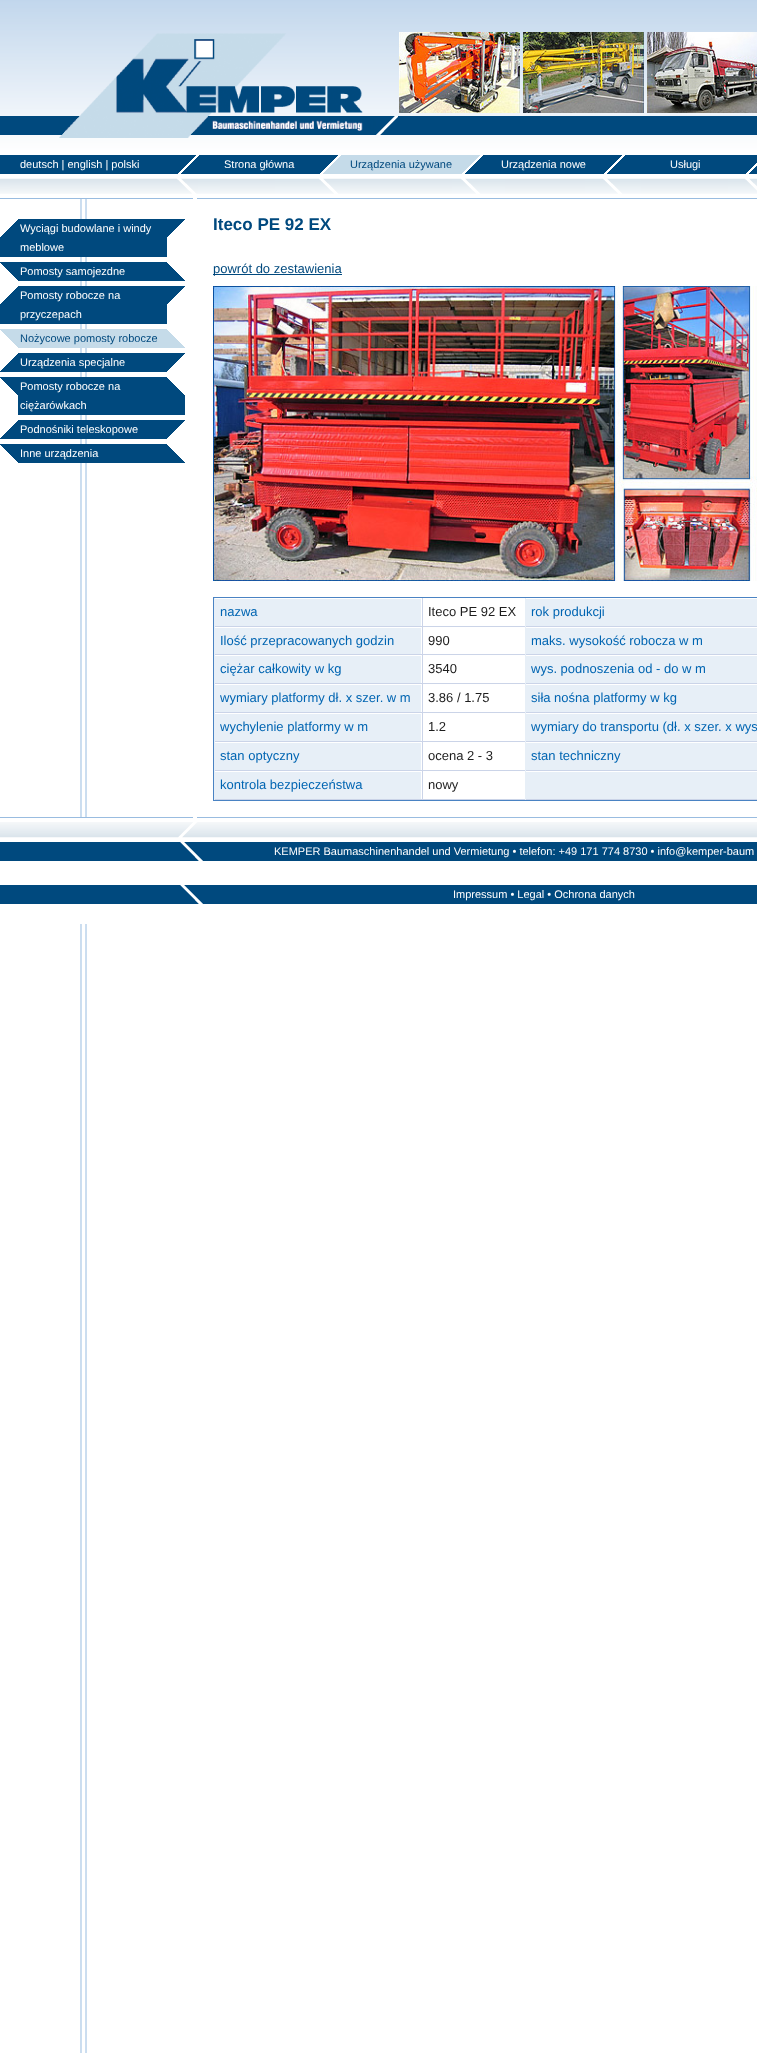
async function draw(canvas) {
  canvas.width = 757
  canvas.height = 2053
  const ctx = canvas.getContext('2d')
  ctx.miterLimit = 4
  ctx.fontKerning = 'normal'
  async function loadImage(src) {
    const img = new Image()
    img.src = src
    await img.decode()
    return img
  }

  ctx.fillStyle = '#fff'
  ctx.fillRect(0, 0, 757, 2053)
  ctx.drawImage(await loadImage('image0.png'), 80, 199, 7, 1854)
  ctx.drawImage(await loadImage('image1.png'), 0, 0, 757, 174)
  ctx.drawImage(await loadImage('image2.png'), 59, 33, 339, 105)
  ctx.drawImage(await loadImage('image3.png'), 399, 32, 121, 81)
  ctx.drawImage(await loadImage('image4.png'), 523, 32, 121, 81)
  ctx.drawImage(await loadImage('image5.png'), 647, 32, 110, 81)
  ctx.font = '11px Liberation Sans'
  ctx.fillText('deutsch | english | polski', 20, 168)
  ctx.drawImage(await loadImage('image6.png'), 178, 171, 3, 3)
  ctx.drawImage(await loadImage('image7.png'), 181, 155, 157, 19)
  ctx.fillText('Strona główna', 224, 168)
  ctx.drawImage(await loadImage('image8.png'), 323, 155, 157, 19)
  ctx.fillStyle = '#00497e'
  ctx.fillText('Urządzenia używane', 350, 168)
  ctx.drawImage(await loadImage('image9.png'), 465, 155, 157, 19)
  ctx.fillStyle = '#fff'
  ctx.fillText('Urządzenia nowe', 501, 168)
  ctx.drawImage(await loadImage('image10.png'), 607, 155, 150, 19)
  ctx.fillText('Usługi', 670, 168)
  ctx.drawImage(await loadImage('image11.png'), 749, 166, 8, 8)
  ctx.drawImage(await loadImage('image12.png'), 0, 178, 757, 21)
  ctx.drawImage(await loadImage('image13.png'), 0, 219, 185, 38)
  ctx.fillText('Wyciągi budowlane i windy', 20, 232)
  ctx.fillText('meblowe', 20, 251)
  ctx.drawImage(await loadImage('image14.png'), 0, 262, 185, 19)
  ctx.fillText('Pomosty samojezdne', 20, 275)
  ctx.drawImage(await loadImage('image13.png'), 0, 286, 185, 38)
  ctx.fillText('Pomosty robocze na', 20, 299)
  ctx.fillText('przyczepach', 20, 318)
  ctx.drawImage(await loadImage('image15.png'), 0, 329, 185, 19)
  ctx.fillStyle = '#00497e'
  ctx.fillText('Nożycowe pomosty robocze', 20, 342)
  ctx.drawImage(await loadImage('image16.png'), 0, 353, 185, 19)
  ctx.fillStyle = '#fff'
  ctx.fillText('Urządzenia specjalne', 20, 366)
  ctx.drawImage(await loadImage('image17.png'), 0, 377, 185, 38)
  ctx.fillText('Pomosty robocze na', 20, 390)
  ctx.fillText('ciężarówkach', 20, 409)
  ctx.drawImage(await loadImage('image16.png'), 0, 420, 185, 19)
  ctx.fillText('Podnośniki teleskopowe', 20, 433)
  ctx.drawImage(await loadImage('image14.png'), 0, 444, 185, 19)
  ctx.fillText('Inne urządzenia', 20, 457)
  ctx.font = 'bold 17px Liberation Sans'
  ctx.fillStyle = '#00497e'
  ctx.fillText('Iteco PE 92 EX', 213, 230)
  ctx.fillRect(213, 274, 129, 1)
  ctx.font = '13px Liberation Sans'
  ctx.fillText('powrót do zestawienia', 213, 273)
  ctx.drawImage(await loadImage('image18.png'), 213, 286, 544, 295)
  ctx.strokeStyle = '#4a83c3'
  ctx.strokeRect(213.5, 597.5, 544, 203)
  ctx.fillStyle = '#e7eff7'
  ctx.fillRect(215, 599, 206, 27)
  ctx.fillStyle = '#cbd4e8'
  ctx.fillRect(214, 626, 543, 1)
  ctx.fillStyle = '#e7eff7'
  ctx.fillRect(214, 598, 1, 29)
  ctx.fillStyle = '#0065b2'
  ctx.fillText('nazwa', 220, 616)
  ctx.fillStyle = '#cbd4e8'
  ctx.fillRect(422, 598, 1, 29)
  ctx.fillStyle = '#1e1e1e'
  ctx.fillText('Iteco PE 92 EX', 428, 616)
  ctx.fillStyle = '#e7eff7'
  ctx.fillRect(526, 599, 231, 27)
  ctx.fillRect(525, 598, 1, 29)
  ctx.fillStyle = '#0065b2'
  ctx.fillText('rok produkcji', 531, 616)
  ctx.fillStyle = '#e7eff7'
  ctx.fillRect(215, 628, 206, 26)
  ctx.fillStyle = '#cbd4e8'
  ctx.fillRect(214, 654, 543, 1)
  ctx.fillStyle = '#e7eff7'
  ctx.fillRect(214, 627, 1, 28)
  ctx.fillStyle = '#0065b2'
  ctx.fillText('Ilość przepracowanych godzin', 220, 645)
  ctx.fillStyle = '#cbd4e8'
  ctx.fillRect(422, 627, 1, 28)
  ctx.fillStyle = '#1e1e1e'
  ctx.fillText('990', 428, 645)
  ctx.fillStyle = '#e7eff7'
  ctx.fillRect(526, 628, 231, 26)
  ctx.fillRect(525, 627, 1, 28)
  ctx.fillStyle = '#0065b2'
  ctx.fillText('maks. wysokość robocza w m', 531, 645)
  ctx.fillStyle = '#e7eff7'
  ctx.fillRect(215, 656, 206, 27)
  ctx.fillStyle = '#cbd4e8'
  ctx.fillRect(214, 683, 543, 1)
  ctx.fillStyle = '#e7eff7'
  ctx.fillRect(214, 655, 1, 29)
  ctx.fillStyle = '#0065b2'
  ctx.fillText('ciężar całkowity w kg', 220, 673)
  ctx.fillStyle = '#cbd4e8'
  ctx.fillRect(422, 655, 1, 29)
  ctx.fillStyle = '#1e1e1e'
  ctx.fillText('3540', 428, 673)
  ctx.fillStyle = '#e7eff7'
  ctx.fillRect(526, 656, 231, 27)
  ctx.fillRect(525, 655, 1, 29)
  ctx.fillStyle = '#0065b2'
  ctx.fillText('wys. podnoszenia od - do w m', 531, 673)
  ctx.fillStyle = '#e7eff7'
  ctx.fillRect(215, 685, 206, 27)
  ctx.fillStyle = '#cbd4e8'
  ctx.fillRect(214, 712, 543, 1)
  ctx.fillStyle = '#e7eff7'
  ctx.fillRect(214, 684, 1, 29)
  ctx.fillStyle = '#0065b2'
  ctx.fillText('wymiary platformy dł. x szer. w m', 220, 702)
  ctx.fillStyle = '#cbd4e8'
  ctx.fillRect(422, 684, 1, 29)
  ctx.fillStyle = '#1e1e1e'
  ctx.fillText('3.86 / 1.75', 428, 702)
  ctx.fillStyle = '#e7eff7'
  ctx.fillRect(526, 685, 231, 27)
  ctx.fillRect(525, 684, 1, 29)
  ctx.fillStyle = '#0065b2'
  ctx.fillText('siła nośna platformy w kg', 531, 702)
  ctx.fillStyle = '#e7eff7'
  ctx.fillRect(215, 714, 206, 27)
  ctx.fillStyle = '#cbd4e8'
  ctx.fillRect(214, 741, 543, 1)
  ctx.fillStyle = '#e7eff7'
  ctx.fillRect(214, 713, 1, 29)
  ctx.fillStyle = '#0065b2'
  ctx.fillText('wychylenie platformy w m', 220, 731)
  ctx.fillStyle = '#cbd4e8'
  ctx.fillRect(422, 713, 1, 29)
  ctx.fillStyle = '#1e1e1e'
  ctx.fillText('1.2', 428, 731)
  ctx.fillStyle = '#e7eff7'
  ctx.fillRect(526, 714, 231, 27)
  ctx.fillRect(525, 713, 1, 29)
  ctx.fillStyle = '#0065b2'
  ctx.fillText('wymiary do transportu (dł. x szer. x wys', 531, 731)
  ctx.fillStyle = '#e7eff7'
  ctx.fillRect(215, 743, 206, 27)
  ctx.fillStyle = '#cbd4e8'
  ctx.fillRect(214, 770, 543, 1)
  ctx.fillStyle = '#e7eff7'
  ctx.fillRect(214, 742, 1, 29)
  ctx.fillStyle = '#0065b2'
  ctx.fillText('stan optyczny', 220, 760)
  ctx.fillStyle = '#cbd4e8'
  ctx.fillRect(422, 742, 1, 29)
  ctx.fillStyle = '#1e1e1e'
  ctx.fillText('ocena 2 - 3', 428, 760)
  ctx.fillStyle = '#e7eff7'
  ctx.fillRect(526, 743, 231, 27)
  ctx.fillRect(525, 742, 1, 29)
  ctx.fillStyle = '#0065b2'
  ctx.fillText('stan techniczny', 531, 760)
  ctx.fillStyle = '#e7eff7'
  ctx.fillRect(215, 772, 206, 27)
  ctx.fillStyle = '#cbd4e8'
  ctx.fillRect(214, 799, 543, 1)
  ctx.fillStyle = '#e7eff7'
  ctx.fillRect(214, 771, 1, 29)
  ctx.fillStyle = '#0065b2'
  ctx.fillText('kontrola bezpieczeństwa', 220, 789)
  ctx.fillStyle = '#cbd4e8'
  ctx.fillRect(422, 771, 1, 29)
  ctx.fillStyle = '#1e1e1e'
  ctx.fillText('nowy', 428, 789)
  ctx.fillStyle = '#e7eff7'
  ctx.fillRect(526, 772, 231, 27)
  ctx.fillRect(525, 771, 1, 29)
  ctx.drawImage(await loadImage('image19.png'), 0, 817, 757, 21)
  ctx.fillStyle = '#00497e'
  ctx.fillRect(0, 842, 757, 19)
  ctx.fillStyle = '#fff'
  ctx.fillRect(80, 838, 7, 4)
  ctx.fillRect(80, 861, 7, 24)
  ctx.drawImage(await loadImage('image20.png'), 180, 842, 23, 19)
  ctx.font = '11px Liberation Sans'
  ctx.fillText('KEMPER Baumaschinenhandel und Vermietung • telefon: +49 171 774 8730 • info@kemper-baum', 274, 855)
  ctx.fillStyle = '#00497e'
  ctx.fillRect(0, 885, 757, 19)
  ctx.fillStyle = '#fff'
  ctx.fillRect(80, 904, 7, 20)
  ctx.drawImage(await loadImage('image20.png'), 180, 885, 23, 19)
  ctx.fillText('Impressum • Legal • Ochrona danych', 453, 898)
}

draw(document.querySelector('canvas'))
